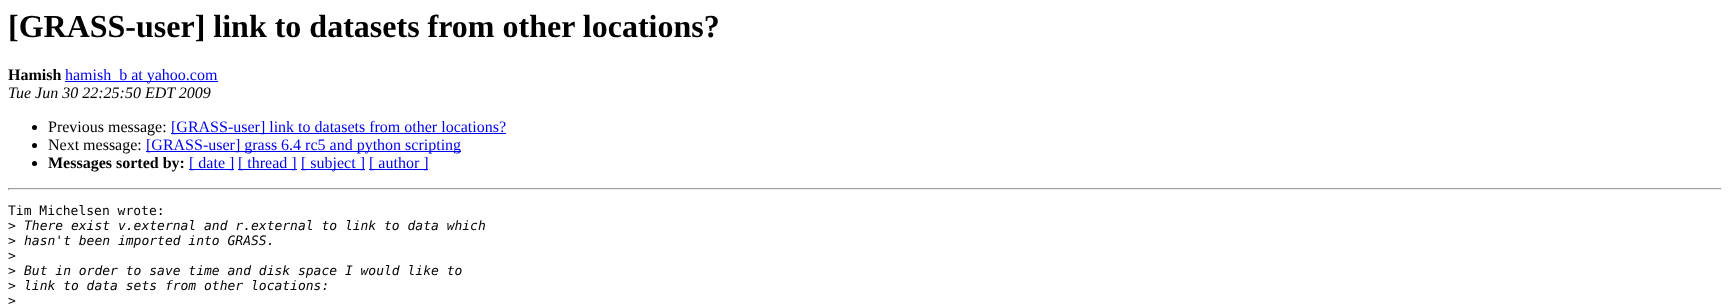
async function draw(canvas) {
  canvas.width = 1730
  canvas.height = 306
  const ctx = canvas.getContext('2d')
  ctx.miterLimit = 4
  ctx.fontKerning = 'normal'

  ctx.fillStyle = '#fff'
  ctx.fillRect(0, 0, 1730, 306)
  ctx.font = 'bold 32px Liberation Serif'
  ctx.fillStyle = '#000'
  ctx.fillText('[GRASS-user] link to datasets from other locations?', 8, 37)
  ctx.font = 'bold 16px Liberation Serif'
  ctx.fillText('Hamish', 8, 80)
  ctx.fillStyle = '#00e'
  ctx.fillRect(65, 81, 153, 1)
  ctx.font = '16px Liberation Serif'
  ctx.fillText('hamish_b at yahoo.com', 65, 80)
  ctx.font = 'italic 16px Liberation Serif'
  ctx.fillStyle = '#000'
  ctx.fillText('Tue Jun 30 22:25:50 EDT 2009', 8, 98)
  ctx.beginPath()
  ctx.arc(34.5, 127.5, 2.5, 0, 2 * Math.PI)
  ctx.fill()
  ctx.font = '16px Liberation Serif'
  ctx.fillText('Previous message:', 48, 132)
  ctx.fillStyle = '#00e'
  ctx.fillRect(171, 133, 335, 1)
  ctx.fillText('[GRASS-user] link to datasets from other locations?', 171, 132)
  ctx.fillStyle = '#000'
  ctx.beginPath()
  ctx.arc(34.5, 145.5, 2.5, 0, 2 * Math.PI)
  ctx.fill()
  ctx.fillText('Next message:', 48, 150)
  ctx.fillStyle = '#00e'
  ctx.fillRect(146, 151, 315, 1)
  ctx.fillText('[GRASS-user] grass 6.4 rc5 and python scripting', 146, 150)
  ctx.fillStyle = '#000'
  ctx.beginPath()
  ctx.arc(34.5, 163.5, 2.5, 0, 2 * Math.PI)
  ctx.fill()
  ctx.font = 'bold 16px Liberation Serif'
  ctx.fillText('Messages sorted by:', 48, 168)
  ctx.fillStyle = '#00e'
  ctx.fillRect(189, 169, 45, 1)
  ctx.font = '16px Liberation Serif'
  ctx.fillText('[ date ]', 189, 168)
  ctx.fillRect(238, 169, 59, 1)
  ctx.fillText('[ thread ]', 238, 168)
  ctx.fillRect(301, 169, 64, 1)
  ctx.fillText('[ subject ]', 301, 168)
  ctx.fillRect(369, 169, 59, 1)
  ctx.fillText('[ author ]', 369, 168)
  ctx.fillStyle = '#9f9f9f'
  ctx.fillRect(8, 188, 1714, 1)
  ctx.fillStyle = '#eee'
  ctx.fillRect(1721, 188, 1, 2)
  ctx.fillRect(8, 189, 1714, 1)
  ctx.fillStyle = '#9f9f9f'
  ctx.fillRect(8, 188, 1, 2)
  ctx.font = '13px DejaVu Sans Mono'
  ctx.fillStyle = '#000'
  ctx.fillText('Tim Michelsen wrote:', 8, 215)
  ctx.fillText('>', 8, 230)
  ctx.font = 'italic 13px DejaVu Sans Mono'
  ctx.fillText('There exist v.external and r.external to link to data which', 24, 230)
  ctx.font = '13px DejaVu Sans Mono'
  ctx.fillText('>', 8, 245)
  ctx.font = 'italic 13px DejaVu Sans Mono'
  ctx.fillText('hasn\'t been imported into GRASS.', 24, 245)
  ctx.font = '13px DejaVu Sans Mono'
  ctx.fillText('>', 8, 260)
  ctx.fillText('>', 8, 275)
  ctx.font = 'italic 13px DejaVu Sans Mono'
  ctx.fillText('But in order to save time and disk space I would like to', 24, 275)
  ctx.font = '13px DejaVu Sans Mono'
  ctx.fillText('>', 8, 290)
  ctx.font = 'italic 13px DejaVu Sans Mono'
  ctx.fillText('link to data sets from other locations:', 24, 290)
  ctx.font = '13px DejaVu Sans Mono'
  ctx.fillText('>', 8, 305)
}

draw(document.querySelector('canvas'))
